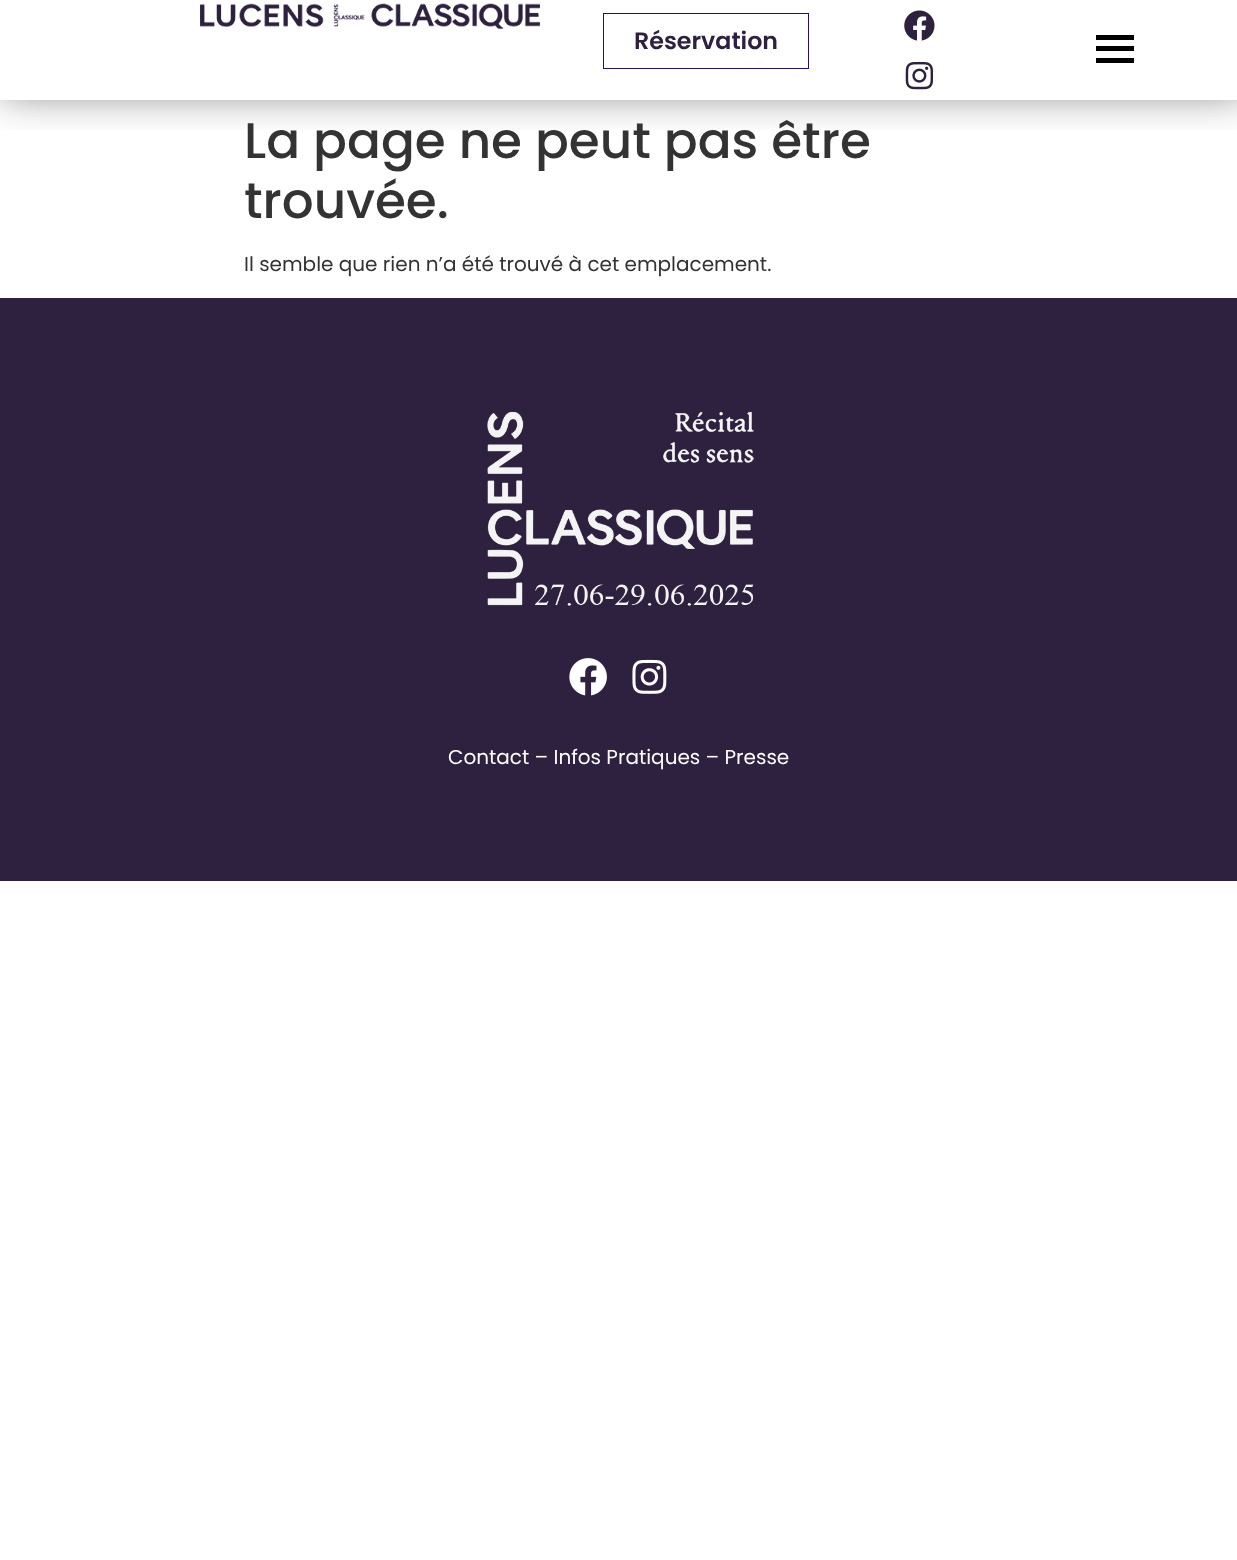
async function draw(canvas) {
  canvas.width = 1237
  canvas.height = 1560
  const ctx = canvas.getContext('2d')
  ctx.miterLimit = 4
  ctx.fontKerning = 'normal'
  async function loadImage(src) {
    const img = new Image()
    img.src = src
    await img.decode()
    return img
  }

  ctx.fillStyle = '#fff'
  ctx.fillRect(0, 0, 1237, 1560)
  ctx.save()
  ctx.beginPath()
  ctx.rect(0, 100, 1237, 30)
  ctx.clip()
  ctx.fillStyle = '#00000080'
  ctx.filter = 'blur(20.5px)'
  ctx.beginPath()
  ctx.rect(1, -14, 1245, 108)
  ctx.fill()
  ctx.filter = 'none'
  ctx.restore()
  ctx.drawImage(await loadImage('image0.png'), 200, 3, 340, 26)
  ctx.strokeStyle = '#251063'
  ctx.strokeRect(603.5, 13.5, 205, 55)
  ctx.font = '600 23.75px Poppins'
  ctx.fillStyle = '#2e213f'
  ctx.fillText('Réservation', 634, 49)
  ctx.drawImage(await loadImage('image1.png'), 904, 10, 31, 31)
  ctx.drawImage(await loadImage('image2.png'), 905, 61, 29, 29)
  ctx.fillStyle = '#000'
  ctx.fillRect(1096, 35, 38, 5)
  ctx.fillRect(1096, 46, 38, 5)
  ctx.fillRect(1096, 58, 38, 5)
  ctx.font = '500 50px Poppins'
  ctx.fillStyle = '#333'
  ctx.fillText('La page ne peut pas être', 244, 158)
  ctx.fillText('trouvée.', 244, 218)
  ctx.font = '20px Poppins'
  ctx.fillText('Il semble que rien n’a été trouvé à cet emplacement.', 244, 271)
  ctx.fillStyle = '#2e213f'
  ctx.fillRect(0, 298, 1237, 583)
  ctx.drawImage(await loadImage('image3.png'), 487, 411, 267, 195)
  ctx.drawImage(await loadImage('image4.png'), 569, 658, 38, 38)
  ctx.drawImage(await loadImage('image5.png'), 632, 659, 35, 35)
  ctx.fillStyle = '#fff'
  ctx.fillText('Contact – Infos Pratiques – Presse', 448, 764)
}

draw(document.querySelector('canvas'))
